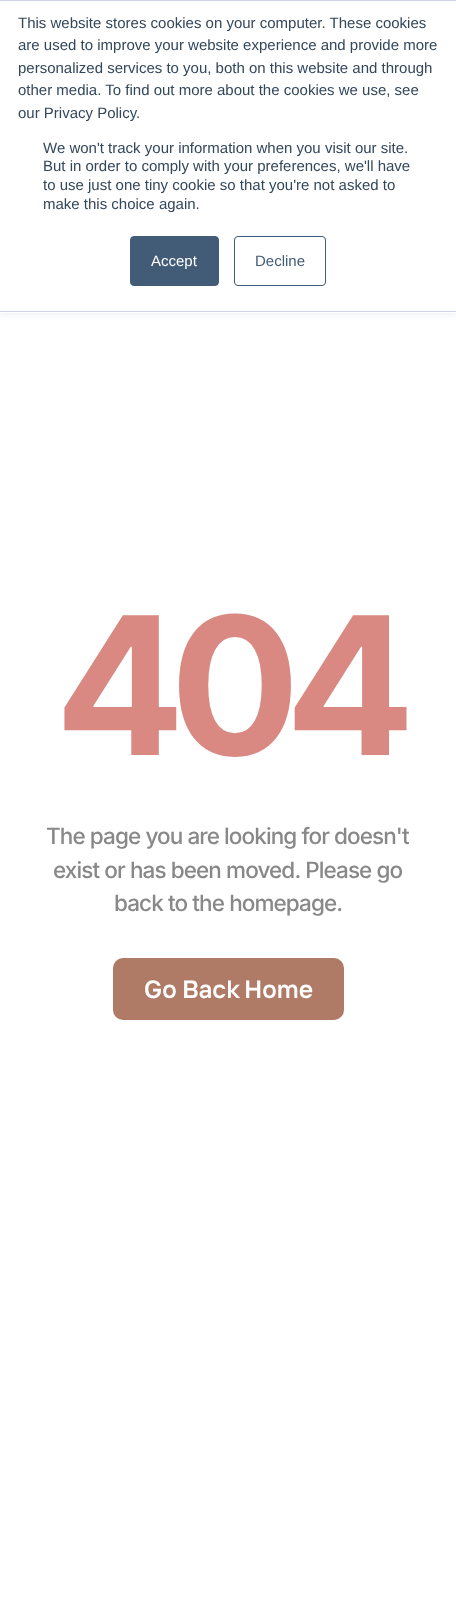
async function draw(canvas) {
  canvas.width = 456
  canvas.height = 1608
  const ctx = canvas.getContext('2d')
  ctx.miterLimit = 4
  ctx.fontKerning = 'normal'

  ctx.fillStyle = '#fff'
  ctx.fillRect(0, 0, 456, 1608)
  ctx.fillStyle = '#eaf0f6'
  ctx.filter = 'blur(3px)'
  ctx.beginPath()
  ctx.rect(0, 1, 456, 313)
  ctx.fill()
  ctx.filter = 'none'
  ctx.fillStyle = '#fff'
  ctx.fillRect(0, 1, 456, 312)
  ctx.fillStyle = '#cbd6e2'
  ctx.fillRect(0, 0, 456, 1)
  ctx.fillRect(0, 311, 456, 1)
  ctx.font = '15px Liberation Sans'
  ctx.fillStyle = '#33475b'
  ctx.fillText('This website stores cookies on your computer. These cookies', 18, 28)
  ctx.fillText('are used to improve your website experience and provide more', 18, 50)
  ctx.fillText('personalized services to you, both on this website and through', 18, 73)
  ctx.fillText('other media. To find out more about the cookies we use, see', 18, 95)
  ctx.fillText('our Privacy Policy.', 18, 118)
  ctx.fillText('We won\'t track your information when you visit our site.', 43, 153)
  ctx.fillText('But in order to comply with your preferences, we\'ll have', 43, 171)
  ctx.fillText('to use just one tiny cookie so that you\'re not asked to', 43, 190)
  ctx.fillText('make this choice again.', 43, 209)
  ctx.fillStyle = '#425b76'
  ctx.beginPath()
  ctx.roundRect(130.5, 236.5, 88, 49, 3.5)
  ctx.fill()
  ctx.strokeStyle = '#425b76'
  ctx.stroke()
  ctx.fillStyle = '#fff'
  ctx.fillText('Accept', 151, 266)
  ctx.beginPath()
  ctx.roundRect(234.5, 236.5, 91, 49, 3.5)
  ctx.stroke()
  ctx.fillStyle = '#425b76'
  ctx.fillText('Decline', 255, 266)
  ctx.letterSpacing = '-14.5px'
  ctx.font = 'bold 192px Inter'
  ctx.fillStyle = '#d98982'
  ctx.fillText('404', 55, 755)
  ctx.letterSpacing = '-0.9px'
  ctx.font = '500 22.5px Inter'
  ctx.fillStyle = '#888'
  ctx.fillText('The page you are looking for doesn\'t', 46, 844)
  ctx.fillText('exist or has been moved. Please go', 53, 878)
  ctx.fillText('back to the homepage.', 114, 911)
  ctx.fillStyle = '#af7a66'
  ctx.beginPath()
  ctx.roundRect(113, 958, 231, 62, 10)
  ctx.fill()
  ctx.letterSpacing = '0px'
  ctx.font = '600 25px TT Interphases'
  ctx.fillStyle = '#fff'
  ctx.fillText('Go Back Home', 144, 998)
}

draw(document.querySelector('canvas'))
